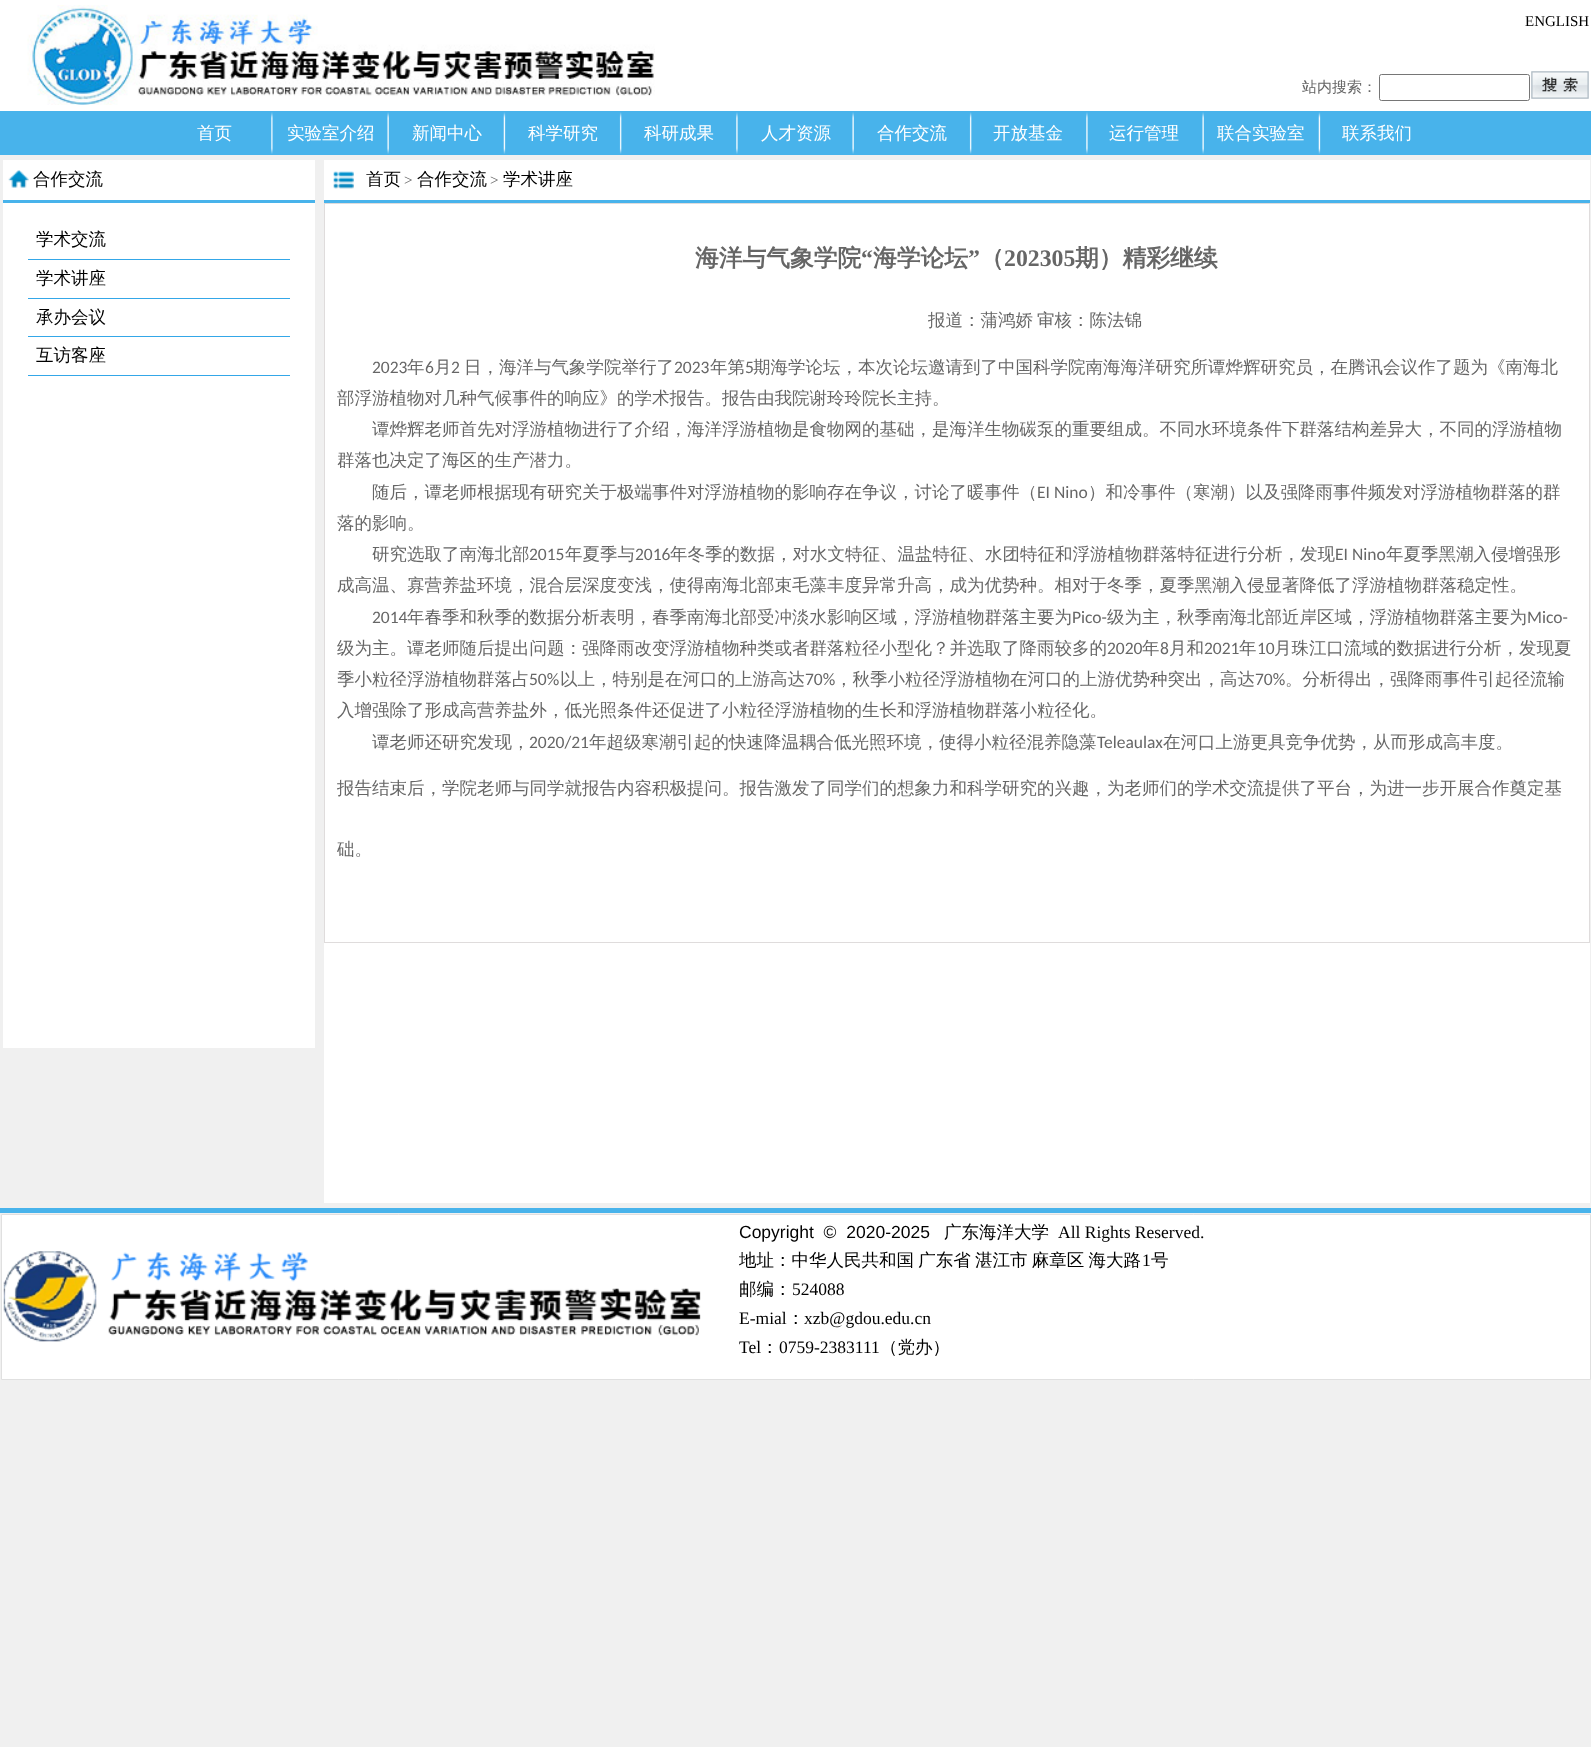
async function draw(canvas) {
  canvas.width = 1591
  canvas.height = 1747
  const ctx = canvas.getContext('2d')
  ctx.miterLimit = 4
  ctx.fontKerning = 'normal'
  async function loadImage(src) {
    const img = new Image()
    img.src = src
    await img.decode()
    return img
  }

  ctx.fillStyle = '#f0f0f0'
  ctx.fillRect(0, 0, 1591, 1747)
  ctx.fillStyle = '#fff'
  ctx.fillRect(0, 0, 1591, 111)
  ctx.drawImage(await loadImage('image0.png'), 27, 5, 628, 100)
  ctx.font = '15px Liberation Serif'
  ctx.fillStyle = '#000'
  ctx.fillText('ENGLISH', 1525, 26)
  ctx.font = '500 15px WenQuanYi Zen Hei'
  ctx.fillStyle = '#666'
  ctx.fillText('站内搜索：', 1302, 92)
  ctx.beginPath()
  ctx.roundRect(1379.5, 74.5, 150, 26, 2)
  ctx.strokeStyle = '#767676'
  ctx.stroke()
  ctx.drawImage(await loadImage('image1.png'), 1531, 71, 58, 28)
  ctx.fillStyle = '#48b3eb'
  ctx.fillRect(0, 111, 1591, 44)
  ctx.font = '500 17.5px WenQuanYi Zen Hei'
  ctx.fillStyle = '#fff'
  ctx.fillText('首页', 197, 139)
  ctx.drawImage(await loadImage('image2.png'), 271, 112, 2, 42)
  ctx.fillText('实验室介绍', 287, 139)
  ctx.drawImage(await loadImage('image3.png'), 387, 112, 2, 42)
  ctx.fillText('新闻中心', 412, 139)
  ctx.drawImage(await loadImage('image4.png'), 503, 112, 3, 42)
  ctx.fillText('科学研究', 528, 139)
  ctx.drawImage(await loadImage('image5.png'), 619, 112, 3, 42)
  ctx.fillText('科研成果', 644, 139)
  ctx.drawImage(await loadImage('image6.png'), 736, 112, 2, 42)
  ctx.fillText('人才资源', 761, 139)
  ctx.drawImage(await loadImage('image3.png'), 852, 112, 2, 42)
  ctx.fillText('合作交流', 877, 139)
  ctx.drawImage(await loadImage('image5.png'), 969, 112, 3, 42)
  ctx.fillText('开放基金', 993, 139)
  ctx.drawImage(await loadImage('image6.png'), 1086, 112, 2, 42)
  ctx.fillText('运行管理', 1109, 139)
  ctx.drawImage(await loadImage('image3.png'), 1202, 112, 2, 42)
  ctx.fillText('联合实验室', 1217, 139)
  ctx.drawImage(await loadImage('image4.png'), 1318, 112, 3, 42)
  ctx.fillText('联系我们', 1342, 139)
  ctx.fillRect(3, 160, 312, 888)
  ctx.drawImage(await loadImage('image7.png'), 8, 170, 21, 18)
  ctx.fillStyle = '#48b3eb'
  ctx.fillRect(3, 200, 312, 3)
  ctx.fillStyle = '#000'
  ctx.fillText('合作交流', 33, 185)
  ctx.fillStyle = '#34a7e8'
  ctx.fillRect(28, 259, 262, 1)
  ctx.fillStyle = '#000'
  ctx.fillText('学术交流', 36, 245)
  ctx.fillStyle = '#34a7e8'
  ctx.fillRect(28, 298, 262, 1)
  ctx.fillStyle = '#000'
  ctx.fillText('学术讲座', 36, 284)
  ctx.fillStyle = '#34a7e8'
  ctx.fillRect(28, 336, 262, 1)
  ctx.fillStyle = '#000'
  ctx.fillText('承办会议', 36, 323)
  ctx.fillStyle = '#34a7e8'
  ctx.fillRect(28, 375, 262, 1)
  ctx.fillStyle = '#000'
  ctx.fillText('互访客座', 36, 361)
  ctx.fillStyle = '#fff'
  ctx.fillRect(324, 160, 1266, 1043)
  ctx.drawImage(await loadImage('image8.png'), 333, 171, 21, 18)
  ctx.fillStyle = '#48b3eb'
  ctx.fillRect(324, 200, 1266, 3)
  ctx.fillStyle = '#000'
  ctx.fillText('首页', 366, 185)
  ctx.font = '15px Liberation Serif'
  ctx.fillStyle = '#666'
  ctx.fillText('>', 404, 185)
  ctx.font = '500 17.5px WenQuanYi Zen Hei'
  ctx.fillStyle = '#000'
  ctx.fillText('合作交流', 417, 185)
  ctx.font = '15px Liberation Serif'
  ctx.fillStyle = '#666'
  ctx.fillText('>', 490, 185)
  ctx.font = '500 17.5px WenQuanYi Zen Hei'
  ctx.fillStyle = '#000'
  ctx.fillText('学术讲座', 503, 185)
  ctx.strokeStyle = '#dfdcdc'
  ctx.strokeRect(324.5, 203.5, 1265, 739)
  ctx.font = 'bold 23.75px WenQuanYi Zen Hei'
  ctx.fillStyle = '#666'
  ctx.fillText('海洋与气象学院', 695, 266)
  ctx.font = 'bold 23.75px Liberation Serif'
  ctx.fillText('“', 861, 266)
  ctx.font = 'bold 23.75px WenQuanYi Zen Hei'
  ctx.fillText('海学论坛', 873, 266)
  ctx.font = 'bold 23.75px Liberation Serif'
  ctx.fillText('”', 968, 266)
  ctx.font = 'bold 23.75px WenQuanYi Zen Hei'
  ctx.fillText('（', 980, 266)
  ctx.font = 'bold 23.75px Liberation Serif'
  ctx.fillText('202305', 1004, 266)
  ctx.font = 'bold 23.75px WenQuanYi Zen Hei'
  ctx.fillText('期）精彩继续', 1075, 266)
  ctx.font = '500 17.5px WenQuanYi Zen Hei'
  ctx.fillText('报道：蒲鸿娇', 928, 326)
  ctx.fillText('审核：陈法锦', 1037, 326)
  ctx.font = '17.5px Carlito'
  ctx.fillText('2023', 372, 373)
  ctx.font = '500 17.5px WenQuanYi Zen Hei'
  ctx.fillText('年', 407, 373)
  ctx.font = '17.5px Carlito'
  ctx.fillText('6', 425, 373)
  ctx.font = '500 17.5px WenQuanYi Zen Hei'
  ctx.fillText('月', 434, 373)
  ctx.font = '17.5px Carlito'
  ctx.fillText('2', 451, 373)
  ctx.font = '500 17.5px WenQuanYi Zen Hei'
  ctx.fillText('日，海洋与气象学院举行了', 464, 373)
  ctx.font = '17.5px Carlito'
  ctx.fillText('2023', 674, 373)
  ctx.font = '500 17.5px WenQuanYi Zen Hei'
  ctx.fillText('年第', 710, 373)
  ctx.font = '17.5px Carlito'
  ctx.fillText('5', 745, 373)
  ctx.font = '500 17.5px WenQuanYi Zen Hei'
  ctx.fillText('期海学论坛，本次论坛邀请到了中国科学院南海海洋研究所谭烨辉研究员，在腾讯会议作了题为《南海北', 753, 373)
  ctx.fillText('部浮游植物对几种气候事件的响应》的学术报告。报告由我院谢玲玲院长主持。', 337, 404)
  ctx.fillText('谭烨辉老师首先对浮游植物进行了介绍，海洋浮游植物是食物网的基础，是海洋生物碳泵的重要组成。不同水环境条件下群落结构差异大，不同的浮游植物', 372, 435)
  ctx.fillText('群落也决定了海区的生产潜力。', 337, 466)
  ctx.fillText('随后，谭老师根据现有研究关于极端事件对浮游植物的影响存在争议，讨论了暖事件（', 372, 498)
  ctx.font = '17.5px Carlito'
  ctx.fillText('EI Nino', 1037, 498)
  ctx.font = '500 17.5px WenQuanYi Zen Hei'
  ctx.fillText('）和冷事件（寒潮）以及强降雨事件频发对浮游植物群落的群', 1088, 498)
  ctx.fillText('落的影响。', 337, 529)
  ctx.fillText('研究选取了南海北部', 372, 560)
  ctx.font = '17.5px Carlito'
  ctx.fillText('2015', 529, 560)
  ctx.font = '500 17.5px WenQuanYi Zen Hei'
  ctx.fillText('年夏季与', 565, 560)
  ctx.font = '17.5px Carlito'
  ctx.fillText('2016', 635, 560)
  ctx.font = '500 17.5px WenQuanYi Zen Hei'
  ctx.fillText('年冬季的数据，对水文特征、温盐特征、水团特征和浮游植物群落特征进行分析，发现', 670, 560)
  ctx.font = '17.5px Carlito'
  ctx.fillText('EI Nino', 1335, 560)
  ctx.font = '500 17.5px WenQuanYi Zen Hei'
  ctx.fillText('年夏季黑潮入侵增强形', 1386, 560)
  ctx.fillText('成高温、寡营养盐环境，混合层深度变浅，使得南海北部束毛藻丰度异常升高，成为优势种。相对于冬季，夏季黑潮入侵显著降低了浮游植物群落稳定性。', 337, 591)
  ctx.font = '17.5px Carlito'
  ctx.fillText('2014', 372, 623)
  ctx.font = '500 17.5px WenQuanYi Zen Hei'
  ctx.fillText('年春季和秋季的数据分析表明，春季南海北部受冲淡水影响区域，浮游植物群落主要为', 407, 623)
  ctx.font = '17.5px Carlito'
  ctx.fillText('Pico-', 1072, 623)
  ctx.font = '500 17.5px WenQuanYi Zen Hei'
  ctx.fillText('级为主，秋季南海北部近岸区域，浮游植物群落主要为', 1107, 623)
  ctx.font = '17.5px Carlito'
  ctx.fillText('Mico-', 1527, 623)
  ctx.font = '500 17.5px WenQuanYi Zen Hei'
  ctx.fillText('级为主。谭老师随后提出问题：强降雨改变浮游植物种类或者群落粒径小型化？并选取了降雨较多的', 337, 654)
  ctx.font = '17.5px Carlito'
  ctx.fillText('2020', 1107, 654)
  ctx.font = '500 17.5px WenQuanYi Zen Hei'
  ctx.fillText('年', 1142, 654)
  ctx.font = '17.5px Carlito'
  ctx.fillText('8', 1160, 654)
  ctx.font = '500 17.5px WenQuanYi Zen Hei'
  ctx.fillText('月和', 1169, 654)
  ctx.font = '17.5px Carlito'
  ctx.fillText('2021', 1204, 654)
  ctx.font = '500 17.5px WenQuanYi Zen Hei'
  ctx.fillText('年', 1239, 654)
  ctx.font = '17.5px Carlito'
  ctx.fillText('10', 1257, 654)
  ctx.font = '500 17.5px WenQuanYi Zen Hei'
  ctx.fillText('月珠江口流域的数据进行分析，发现夏', 1274, 654)
  ctx.fillText('季小粒径浮游植物群落占', 337, 685)
  ctx.font = '17.5px Carlito'
  ctx.fillText('50%', 529, 685)
  ctx.font = '500 17.5px WenQuanYi Zen Hei'
  ctx.fillText('以上，特别是在河口的上游高达', 560, 685)
  ctx.font = '17.5px Carlito'
  ctx.fillText('70%', 805, 685)
  ctx.font = '500 17.5px WenQuanYi Zen Hei'
  ctx.fillText('，秋季小粒径浮游植物在河口的上游优势种突出，高达', 835, 685)
  ctx.font = '17.5px Carlito'
  ctx.fillText('70%', 1255, 685)
  ctx.font = '500 17.5px WenQuanYi Zen Hei'
  ctx.fillText('。分析得出，强降雨事件引起径流输', 1285, 685)
  ctx.fillText('入增强除了形成高营养盐外，低光照条件还促进了小粒径浮游植物的生长和浮游植物群落小粒径化。', 337, 716)
  ctx.fillText('谭老师还研究发现，', 372, 748)
  ctx.font = '17.5px Carlito'
  ctx.fillText('2020/21', 529, 748)
  ctx.font = '500 17.5px WenQuanYi Zen Hei'
  ctx.fillText('年超级寒潮引起的快速降温耦合低光照环境，使得小粒径混养隐藻', 589, 748)
  ctx.font = '17.5px Carlito'
  ctx.fillText('Teleaulax', 1097, 748)
  ctx.font = '500 17.5px WenQuanYi Zen Hei'
  ctx.fillText('在河口上游更具竞争优势，从而形成高丰度。', 1163, 748)
  ctx.fillText('报告结束后，学院老师与同学就报告内容积极提问。报告激发了同学们的想象力和科学研究的兴趣，为老师们的学术交流提供了平台，为进一步开展合作奠定基', 337, 794)
  ctx.fillText('础。', 337, 855)
  ctx.fillStyle = '#48b3eb'
  ctx.fillRect(0, 1208, 1591, 5)
  ctx.fillStyle = '#fff'
  ctx.beginPath()
  ctx.rect(1.5, 1214.5, 1589, 165)
  ctx.fill()
  ctx.strokeStyle = '#e0e0e0'
  ctx.stroke()
  ctx.drawImage(await loadImage('image9.png'), 3, 1251, 698, 91)
  ctx.font = '17.5px Liberation Sans'
  ctx.fillStyle = '#000'
  ctx.fillText('Copyright  ©  2020-2025', 739, 1238)
  ctx.font = '500 17.5px WenQuanYi Zen Hei'
  ctx.fillText('广东海洋大学', 944, 1238)
  ctx.font = '17.5px Liberation Serif'
  ctx.fillText('All Rights Reserved.', 1058, 1238)
  ctx.wordSpacing = '-1px'
  ctx.font = '500 17.5px WenQuanYi Zen Hei'
  ctx.fillText('地址：中华人民共和国 广东省 湛江市 麻章区 海大路', 739, 1266)
  ctx.wordSpacing = '0px'
  ctx.font = '17.5px Liberation Serif'
  ctx.fillText('1', 1142, 1266)
  ctx.font = '500 17.5px WenQuanYi Zen Hei'
  ctx.fillText('号', 1151, 1266)
  ctx.fillText('邮编：', 739, 1295)
  ctx.font = '17.5px Liberation Serif'
  ctx.fillText('524088', 792, 1295)
  ctx.fillText('E-mial', 739, 1324)
  ctx.font = '500 17.5px WenQuanYi Zen Hei'
  ctx.fillText('：', 787, 1324)
  ctx.font = '17.5px Liberation Serif'
  ctx.fillText('xzb@gdou.edu.cn', 804, 1324)
  ctx.fillText('Tel', 739, 1353)
  ctx.font = '500 17.5px WenQuanYi Zen Hei'
  ctx.fillText('：', 761, 1353)
  ctx.font = '17.5px Liberation Serif'
  ctx.fillText('0759-2383111', 779, 1353)
  ctx.font = '500 17.5px WenQuanYi Zen Hei'
  ctx.fillText('（党办）', 880, 1353)
}

draw(document.querySelector('canvas'))
